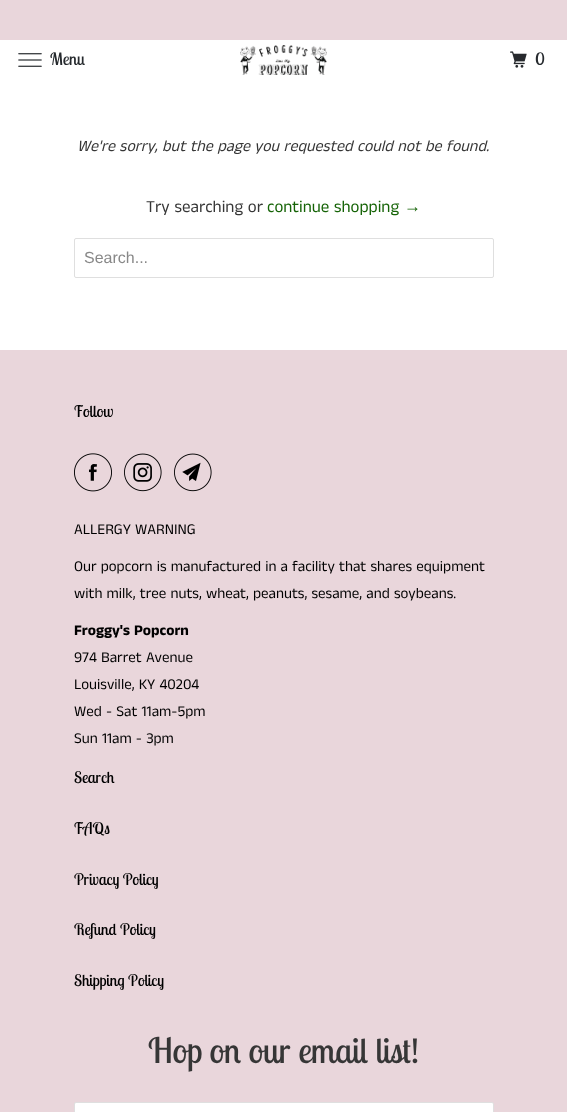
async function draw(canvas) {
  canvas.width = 567
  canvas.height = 1112
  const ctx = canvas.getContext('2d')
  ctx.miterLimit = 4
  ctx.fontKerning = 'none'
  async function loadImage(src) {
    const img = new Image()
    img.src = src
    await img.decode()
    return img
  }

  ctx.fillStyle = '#e9d6db'
  ctx.fillRect(0, 0, 567, 1112)
  ctx.fillStyle = '#fff'
  ctx.fillRect(0, 40, 567, 310)
  ctx.drawImage(await loadImage('image0.png'), 18, 53, 24, 14)
  ctx.font = '17px Lobster Two'
  ctx.fillStyle = '#262a2e'
  ctx.fillText('Menu', 50, 65)
  ctx.drawImage(await loadImage('image1.png'), 240, 45, 87, 30)
  ctx.drawImage(await loadImage('image2.png'), 510, 51, 17, 17)
  ctx.fillText('0', 535, 65)
  ctx.font = 'italic 16px Anek Tamil'
  ctx.fillStyle = '#363636'
  ctx.fillText('We\'re sorry, but the page you requested could not be found.', 77, 151)
  ctx.font = '17px Anek Tamil'
  ctx.fillText('Try searching or', 146, 212)
  ctx.fillStyle = '#156306'
  ctx.fillText('continue shopping', 267, 212)
  ctx.font = '17px Liberation Sans'
  ctx.fillText('→', 404, 212)
  ctx.beginPath()
  ctx.roundRect(74.5, 238.5, 419, 39, 1.5)
  ctx.strokeStyle = '#dfdfdf'
  ctx.stroke()
  ctx.font = '16px Liberation Sans'
  ctx.fillStyle = '#888'
  ctx.fillText('Search...', 84, 263)
  ctx.font = '16px Lobster Two'
  ctx.fillStyle = '#000'
  ctx.fillText('Follow', 74, 417)
  ctx.drawImage(await loadImage('image3.png'), 74, 453, 38, 39)
  ctx.drawImage(await loadImage('image4.png'), 124, 453, 38, 39)
  ctx.drawImage(await loadImage('image5.png'), 174, 453, 38, 39)
  ctx.font = '15px Anek Tamil'
  ctx.fillText('ALLERGY WARNING', 74, 534)
  ctx.fillText('Our popcorn is manufactured in a facility that shares equipment', 74, 571)
  ctx.fillText('with milk, tree nuts, wheat, peanuts, sesame, and soybeans.', 74, 598)
  ctx.font = 'bold 15px Anek Tamil'
  ctx.fillText('Froggy\'s Popcorn', 74, 635)
  ctx.font = '15px Anek Tamil'
  ctx.fillText('974 Barret Avenue', 74, 662)
  ctx.fillText('Louisville, KY 40204', 74, 689)
  ctx.fillText('Wed - Sat 11am-5pm', 74, 716)
  ctx.fillText('Sun 11am - 3pm', 74, 743)
  ctx.font = '16px Lobster Two'
  ctx.fillText('Search', 74, 783)
  ctx.fillText('FAQs', 74, 834)
  ctx.fillText('Privacy Policy', 74, 885)
  ctx.fillText('Refund Policy', 74, 935)
  ctx.fillText('Shipping Policy', 74, 986)
  ctx.font = '35px Lobster Two'
  ctx.fillStyle = '#363636'
  ctx.fillText('Hop on our email list!', 148, 1063)
  ctx.fillStyle = '#fff'
  ctx.beginPath()
  ctx.roundRect(74.5, 1102.5, 419, 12, 1.5)
  ctx.fill()
  ctx.stroke()
}

draw(document.querySelector('canvas'))
